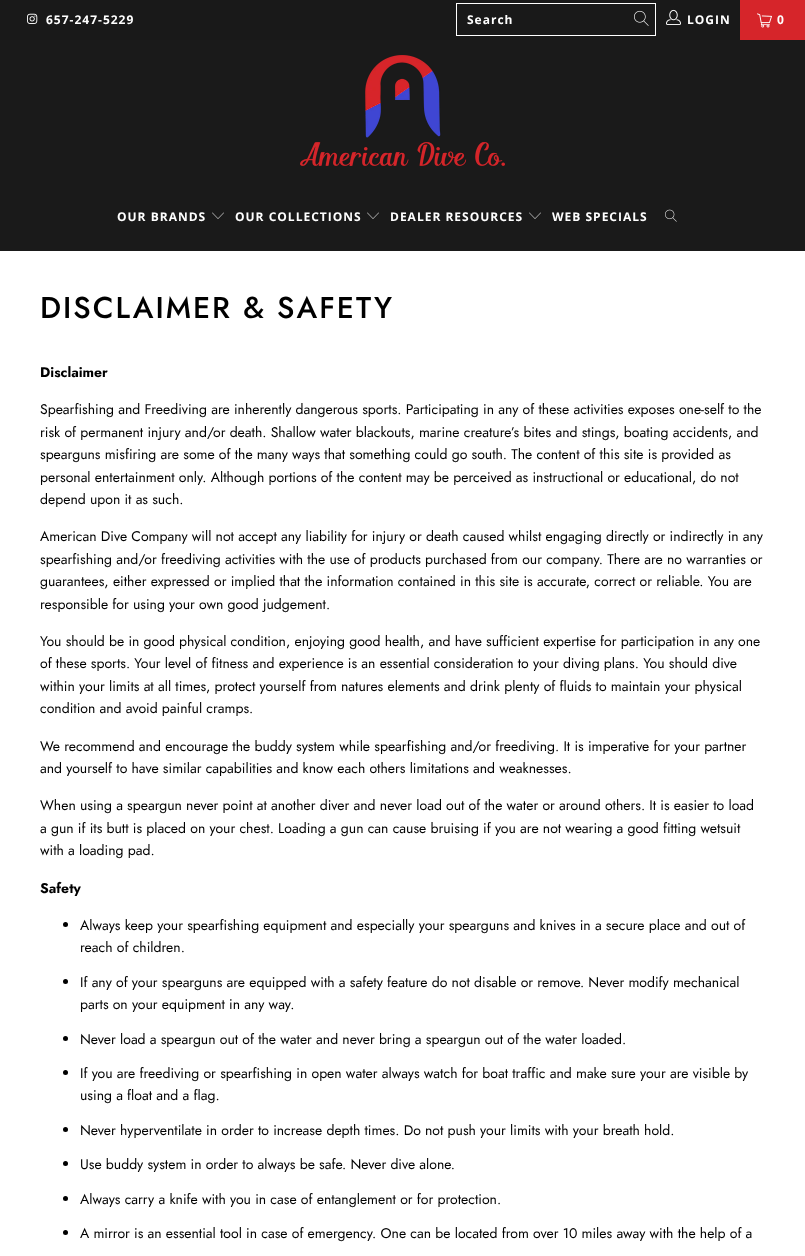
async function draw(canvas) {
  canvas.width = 805
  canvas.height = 1256
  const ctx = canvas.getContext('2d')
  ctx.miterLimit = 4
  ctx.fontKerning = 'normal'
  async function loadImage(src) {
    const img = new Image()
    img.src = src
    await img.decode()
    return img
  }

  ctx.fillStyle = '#fff'
  ctx.fillRect(0, 0, 805, 1256)
  ctx.fillStyle = '#191919'
  ctx.fillRect(0, 0, 740, 40)
  ctx.drawImage(await loadImage('image0.png'), 27, 13, 11, 11)
  ctx.letterSpacing = '1px'
  ctx.font = 'bold 12px Open Sans'
  ctx.fillStyle = '#fff'
  ctx.fillText('657-247-5229', 46, 24)
  ctx.strokeStyle = '#fff'
  ctx.strokeRect(456.5, 3.5, 199, 32)
  ctx.fillText('Search', 467, 24)
  ctx.drawImage(await loadImage('image1.png'), 634, 10, 15, 16)
  ctx.drawImage(await loadImage('image2.png'), 666, 9, 15, 16)
  ctx.fillText('LOGIN', 687, 24)
  ctx.fillStyle = '#d6252a'
  ctx.fillRect(740, 0, 65, 40)
  ctx.drawImage(await loadImage('image3.png'), 757, 13, 15, 15)
  ctx.fillStyle = '#fff'
  ctx.fillText('0', 777, 24)
  ctx.fillStyle = '#1a1a1a'
  ctx.fillRect(0, 40, 805, 211)
  ctx.drawImage(await loadImage('image4.png'), 300, 55, 205, 111)
  ctx.fillStyle = '#fff'
  ctx.fillText('OUR BRANDS', 117, 221)
  ctx.drawImage(await loadImage('image5.png'), 212, 212, 12, 7)
  ctx.fillText('OUR COLLECTIONS', 235, 221)
  ctx.drawImage(await loadImage('image5.png'), 367, 212, 12, 7)
  ctx.fillText('DEALER RESOURCES', 390, 221)
  ctx.drawImage(await loadImage('image5.png'), 529, 212, 12, 7)
  ctx.fillText('WEB SPECIALS', 552, 221)
  ctx.drawImage(await loadImage('image6.png'), 665, 209, 12, 13)
  ctx.letterSpacing = '2px'
  ctx.font = '500 30px Jost'
  ctx.fillStyle = '#000'
  ctx.fillText('DISCLAIMER & SAFETY', 40, 318)
  ctx.letterSpacing = '0px'
  ctx.font = 'bold 14px Jost'
  ctx.fillText('Disclaimer', 40, 377)
  ctx.font = '14px Jost'
  ctx.fillText('Spearfishing and Freediving are inherently dangerous sports. Participating in any of these activities exposes one-self to the', 40, 414)
  ctx.fillText('risk of permanent injury and/or death. Shallow water blackouts, marine creature’s bites and stings, boating accidents, and', 40, 437)
  ctx.fillText('spearguns misfiring are some of the many ways that something could go south. The content of this site is provided as', 40, 459)
  ctx.fillText('personal entertainment only. Although portions of the content may be perceived as instructional or educational, do not', 40, 482)
  ctx.fillText('depend upon it as such.', 40, 504)
  ctx.fillText('American Dive Company will not accept any liability for injury or death caused whilst engaging directly or indirectly in any', 40, 541)
  ctx.fillText('spearfishing and/or freediving activities with the use of products purchased from our company. There are no warranties or', 40, 564)
  ctx.fillText('guarantees, either expressed or implied that the information contained in this site is accurate, correct or reliable. You are', 40, 586)
  ctx.fillText('responsible for using your own good judgement.', 40, 609)
  ctx.fillText('You should be in good physical condition, enjoying good health, and have sufficient expertise for participation in any one', 40, 646)
  ctx.fillText('of these sports. Your level of fitness and experience is an essential consideration to your diving plans. You should dive', 40, 668)
  ctx.fillText('within your limits at all times, protect yourself from natures elements and drink plenty of fluids to maintain your physical', 40, 691)
  ctx.fillText('condition and avoid painful cramps.', 40, 713)
  ctx.fillText('We recommend and encourage the buddy system while spearfishing and/or freediving. It is imperative for your partner', 40, 751)
  ctx.fillText('and yourself to have similar capabilities and know each others limitations and weaknesses.', 40, 773)
  ctx.fillText('When using a speargun never point at another diver and never load out of the water or around others. It is easier to load', 40, 810)
  ctx.fillText('a gun if its butt is placed on your chest. Loading a gun can cause bruising if you are not wearing a good fitting wetsuit', 40, 833)
  ctx.fillText('with a loading pad.', 40, 855)
  ctx.font = 'bold 14px Jost'
  ctx.fillText('Safety', 40, 893)
  ctx.beginPath()
  ctx.arc(65.5, 924.5, 2.5, 0, 2 * Math.PI)
  ctx.fill()
  ctx.font = '14px Jost'
  ctx.fillText('Always keep your spearfishing equipment and especially your spearguns and knives in a secure place and out of', 80, 930)
  ctx.fillText('reach of children.', 80, 952)
  ctx.beginPath()
  ctx.arc(65.5, 981.5, 2.5, 0, 2 * Math.PI)
  ctx.fill()
  ctx.fillText('If any of your spearguns are equipped with a safety feature do not disable or remove. Never modify mechanical', 80, 987)
  ctx.fillText('parts on your equipment in any way.', 80, 1009)
  ctx.beginPath()
  ctx.arc(65.5, 1038.5, 2.5, 0, 2 * Math.PI)
  ctx.fill()
  ctx.fillText('Never load a speargun out of the water and never bring a speargun out of the water loaded.', 80, 1044)
  ctx.beginPath()
  ctx.arc(65.5, 1072.5, 2.5, 0, 2 * Math.PI)
  ctx.fill()
  ctx.fillText('If you are freediving or spearfishing in open water always watch for boat traffic and make sure your are visible by', 80, 1078)
  ctx.fillText('using a float and a flag.', 80, 1100)
  ctx.beginPath()
  ctx.arc(65.5, 1129.5, 2.5, 0, 2 * Math.PI)
  ctx.fill()
  ctx.fillText('Never hyperventilate in order to increase depth times. Do not push your limits with your breath hold.', 80, 1135)
  ctx.beginPath()
  ctx.arc(65.5, 1163.5, 2.5, 0, 2 * Math.PI)
  ctx.fill()
  ctx.fillText('Use buddy system in order to always be safe. Never dive alone.', 80, 1169)
  ctx.beginPath()
  ctx.arc(65.5, 1198.5, 2.5, 0, 2 * Math.PI)
  ctx.fill()
  ctx.fillText('Always carry a knife with you in case of entanglement or for protection.', 80, 1204)
  ctx.beginPath()
  ctx.arc(65.5, 1232.5, 2.5, 0, 2 * Math.PI)
  ctx.fill()
  ctx.fillText('A mirror is an essential tool in case of emergency. One can be located from over 10 miles away with the help of a', 80, 1238)
}

draw(document.querySelector('canvas'))
